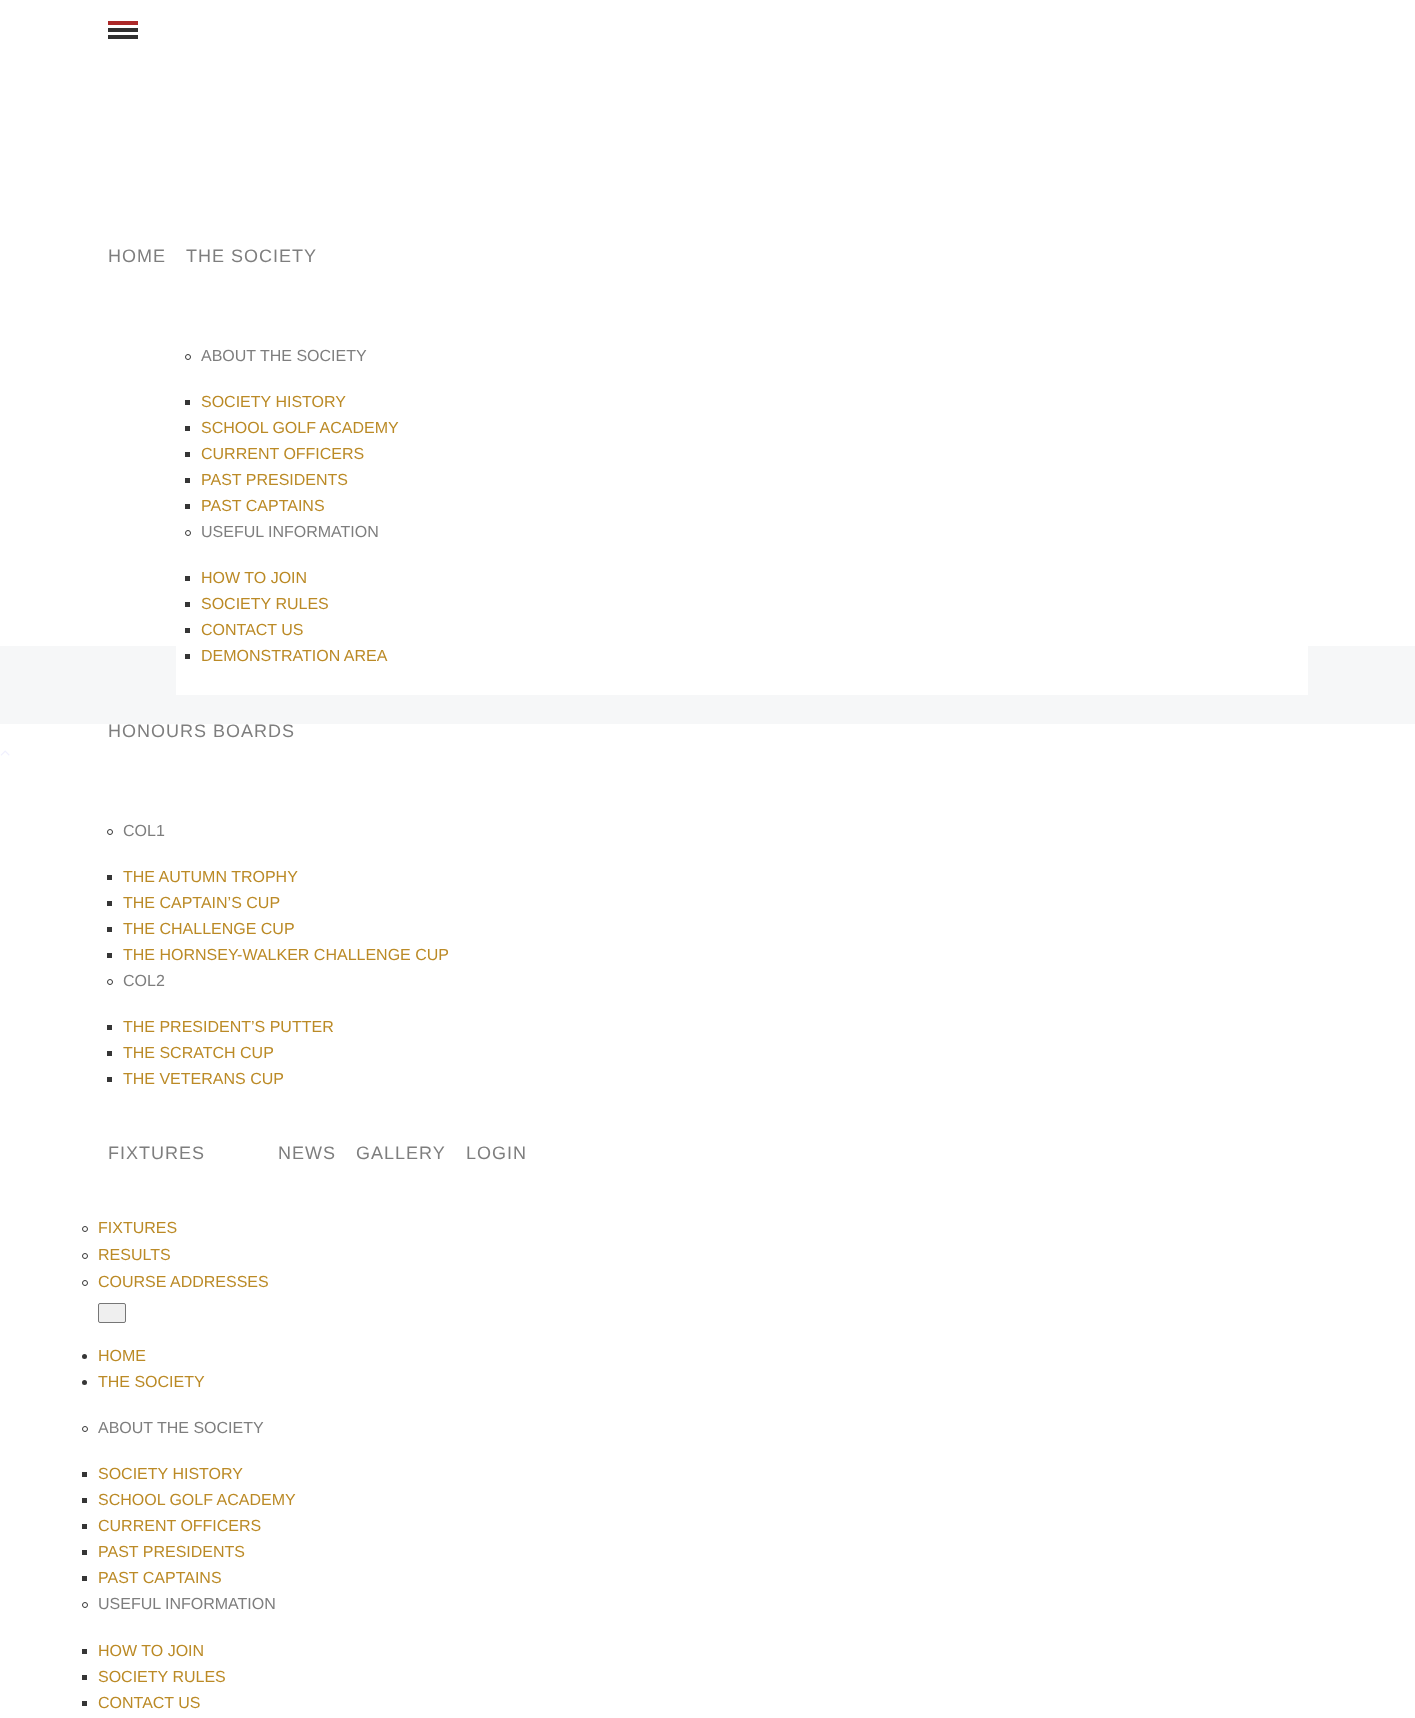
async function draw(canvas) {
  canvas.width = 1415
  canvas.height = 1718
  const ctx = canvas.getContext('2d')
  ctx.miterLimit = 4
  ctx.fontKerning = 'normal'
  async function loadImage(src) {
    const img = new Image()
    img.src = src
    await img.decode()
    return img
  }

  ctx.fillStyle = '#fff'
  ctx.fillRect(0, 0, 1415, 1718)
  ctx.letterSpacing = '1px'
  ctx.font = '18px Liberation Sans'
  ctx.fillStyle = '#7e7e7e'
  ctx.fillText('HOME', 108, 262)
  ctx.fillText('THE SOCIETY', 186, 262)
  ctx.fillStyle = '#f6f7f8'
  ctx.fillRect(0, 646, 1415, 78)
  ctx.fillStyle = '#fff'
  ctx.fillRect(176, 646, 1132, 49)
  ctx.beginPath()
  ctx.arc(188, 357, 2.5, 0, 2 * Math.PI)
  ctx.strokeStyle = '#363636'
  ctx.stroke()
  ctx.letterSpacing = '0px'
  ctx.font = '16px Liberation Sans'
  ctx.fillStyle = '#7e7e7e'
  ctx.fillText('ABOUT THE SOCIETY', 201, 361)
  ctx.fillStyle = '#363636'
  ctx.fillRect(185, 400, 5, 5)
  ctx.fillStyle = '#bb8a26'
  ctx.fillText('SOCIETY HISTORY', 201, 407)
  ctx.fillStyle = '#363636'
  ctx.fillRect(185, 426, 5, 5)
  ctx.fillStyle = '#bb8a26'
  ctx.fillText('SCHOOL GOLF ACADEMY', 201, 433)
  ctx.fillStyle = '#363636'
  ctx.fillRect(185, 452, 5, 5)
  ctx.fillStyle = '#bb8a26'
  ctx.fillText('CURRENT OFFICERS', 201, 459)
  ctx.fillStyle = '#363636'
  ctx.fillRect(185, 478, 5, 5)
  ctx.fillStyle = '#bb8a26'
  ctx.fillText('PAST PRESIDENTS', 201, 485)
  ctx.fillStyle = '#363636'
  ctx.fillRect(185, 504, 5, 5)
  ctx.fillStyle = '#bb8a26'
  ctx.fillText('PAST CAPTAINS', 201, 511)
  ctx.beginPath()
  ctx.arc(188, 533, 2.5, 0, 2 * Math.PI)
  ctx.stroke()
  ctx.fillStyle = '#7e7e7e'
  ctx.fillText('USEFUL INFORMATION', 201, 537)
  ctx.fillStyle = '#363636'
  ctx.fillRect(185, 576, 5, 5)
  ctx.fillStyle = '#bb8a26'
  ctx.fillText('HOW TO JOIN', 201, 583)
  ctx.fillStyle = '#363636'
  ctx.fillRect(185, 602, 5, 5)
  ctx.fillStyle = '#bb8a26'
  ctx.fillText('SOCIETY RULES', 201, 609)
  ctx.fillStyle = '#363636'
  ctx.fillRect(185, 628, 5, 5)
  ctx.fillStyle = '#bb8a26'
  ctx.fillText('CONTACT US', 201, 635)
  ctx.fillStyle = '#363636'
  ctx.fillRect(185, 654, 5, 5)
  ctx.fillStyle = '#bb8a26'
  ctx.fillText('DEMONSTRATION AREA', 201, 661)
  ctx.letterSpacing = '1px'
  ctx.font = '18px Liberation Sans'
  ctx.fillStyle = '#7e7e7e'
  ctx.fillText('HONOURS BOARDS', 108, 737)
  ctx.beginPath()
  ctx.arc(110, 832, 2.5, 0, 2 * Math.PI)
  ctx.stroke()
  ctx.letterSpacing = '0px'
  ctx.font = '16px Liberation Sans'
  ctx.fillText('COL1', 123, 836)
  ctx.fillStyle = '#363636'
  ctx.fillRect(107, 875, 5, 5)
  ctx.fillStyle = '#bb8a26'
  ctx.fillText('THE AUTUMN TROPHY', 123, 882)
  ctx.fillStyle = '#363636'
  ctx.fillRect(107, 901, 5, 5)
  ctx.fillStyle = '#bb8a26'
  ctx.fillText('THE CAPTAIN’S CUP', 123, 908)
  ctx.fillStyle = '#363636'
  ctx.fillRect(107, 927, 5, 5)
  ctx.fillStyle = '#bb8a26'
  ctx.fillText('THE CHALLENGE CUP', 123, 934)
  ctx.fillStyle = '#363636'
  ctx.fillRect(107, 953, 5, 5)
  ctx.fillStyle = '#bb8a26'
  ctx.fillText('THE HORNSEY-WALKER CHALLENGE CUP', 123, 960)
  ctx.beginPath()
  ctx.arc(110, 982, 2.5, 0, 2 * Math.PI)
  ctx.stroke()
  ctx.fillStyle = '#7e7e7e'
  ctx.fillText('COL2', 123, 986)
  ctx.fillStyle = '#363636'
  ctx.fillRect(107, 1025, 5, 5)
  ctx.fillStyle = '#bb8a26'
  ctx.fillText('THE PRESIDENT’S PUTTER', 123, 1032)
  ctx.fillStyle = '#363636'
  ctx.fillRect(107, 1051, 5, 5)
  ctx.fillStyle = '#bb8a26'
  ctx.fillText('THE SCRATCH CUP', 123, 1058)
  ctx.fillStyle = '#363636'
  ctx.fillRect(107, 1077, 5, 5)
  ctx.fillStyle = '#bb8a26'
  ctx.fillText('THE VETERANS CUP', 123, 1084)
  ctx.letterSpacing = '1px'
  ctx.font = '18px Liberation Sans'
  ctx.fillStyle = '#7e7e7e'
  ctx.fillText('FIXTURES', 108, 1159)
  ctx.beginPath()
  ctx.arc(85, 1229, 2.5, 0, 2 * Math.PI)
  ctx.stroke()
  ctx.letterSpacing = '0px'
  ctx.font = '16px Liberation Sans'
  ctx.fillStyle = '#bb8a26'
  ctx.fillText('FIXTURES', 98, 1233)
  ctx.beginPath()
  ctx.arc(85, 1256, 2.5, 0, 2 * Math.PI)
  ctx.stroke()
  ctx.fillText('RESULTS', 98, 1260)
  ctx.beginPath()
  ctx.arc(85, 1283, 2.5, 0, 2 * Math.PI)
  ctx.stroke()
  ctx.fillText('COURSE ADDRESSES', 98, 1287)
  ctx.letterSpacing = '1px'
  ctx.font = '18px Liberation Sans'
  ctx.fillStyle = '#7e7e7e'
  ctx.fillText('NEWS', 278, 1159)
  ctx.fillText('GALLERY', 356, 1159)
  ctx.fillText('LOGIN', 466, 1159)
  ctx.fillStyle = '#efefef'
  ctx.beginPath()
  ctx.roundRect(98.5, 1303.5, 27, 19, 1.5)
  ctx.fill()
  ctx.strokeStyle = '#767676'
  ctx.stroke()
  ctx.fillStyle = '#303030'
  ctx.fillRect(108, 35, 30, 4)
  ctx.fillRect(108, 28, 30, 4)
  ctx.fillStyle = '#ac2929'
  ctx.fillRect(108, 21, 30, 4)
  ctx.fillStyle = '#363636'
  ctx.beginPath()
  ctx.arc(84.5, 1356.5, 2.5, 0, 2 * Math.PI)
  ctx.fill()
  ctx.letterSpacing = '0px'
  ctx.font = '16px Liberation Sans'
  ctx.fillStyle = '#bb8a26'
  ctx.fillText('HOME', 98, 1361)
  ctx.fillStyle = '#363636'
  ctx.beginPath()
  ctx.arc(84.5, 1382.5, 2.5, 0, 2 * Math.PI)
  ctx.fill()
  ctx.fillStyle = '#bb8a26'
  ctx.fillText('THE SOCIETY', 98, 1387)
  ctx.beginPath()
  ctx.arc(85, 1429, 2.5, 0, 2 * Math.PI)
  ctx.strokeStyle = '#363636'
  ctx.stroke()
  ctx.fillStyle = '#7e7e7e'
  ctx.fillText('ABOUT THE SOCIETY', 98, 1433)
  ctx.fillStyle = '#363636'
  ctx.fillRect(82, 1472, 5, 5)
  ctx.fillStyle = '#bb8a26'
  ctx.fillText('SOCIETY HISTORY', 98, 1479)
  ctx.fillStyle = '#363636'
  ctx.fillRect(82, 1498, 5, 5)
  ctx.fillStyle = '#bb8a26'
  ctx.fillText('SCHOOL GOLF ACADEMY', 98, 1505)
  ctx.fillStyle = '#363636'
  ctx.fillRect(82, 1524, 5, 5)
  ctx.fillStyle = '#bb8a26'
  ctx.fillText('CURRENT OFFICERS', 98, 1531)
  ctx.fillStyle = '#363636'
  ctx.fillRect(82, 1550, 5, 5)
  ctx.fillStyle = '#bb8a26'
  ctx.fillText('PAST PRESIDENTS', 98, 1557)
  ctx.fillStyle = '#363636'
  ctx.fillRect(82, 1576, 5, 5)
  ctx.fillStyle = '#bb8a26'
  ctx.fillText('PAST CAPTAINS', 98, 1583)
  ctx.beginPath()
  ctx.arc(85, 1605, 2.5, 0, 2 * Math.PI)
  ctx.stroke()
  ctx.fillStyle = '#7e7e7e'
  ctx.fillText('USEFUL INFORMATION', 98, 1609)
  ctx.fillStyle = '#363636'
  ctx.fillRect(82, 1649, 5, 5)
  ctx.fillStyle = '#bb8a26'
  ctx.fillText('HOW TO JOIN', 98, 1656)
  ctx.fillStyle = '#363636'
  ctx.fillRect(82, 1675, 5, 5)
  ctx.fillStyle = '#bb8a26'
  ctx.fillText('SOCIETY RULES', 98, 1682)
  ctx.fillStyle = '#363636'
  ctx.fillRect(82, 1701, 5, 5)
  ctx.fillStyle = '#bb8a26'
  ctx.fillText('CONTACT US', 98, 1708)
  ctx.drawImage(await loadImage('image0.png'), 0, 750, 10, 6)
}

draw(document.querySelector('canvas'))
